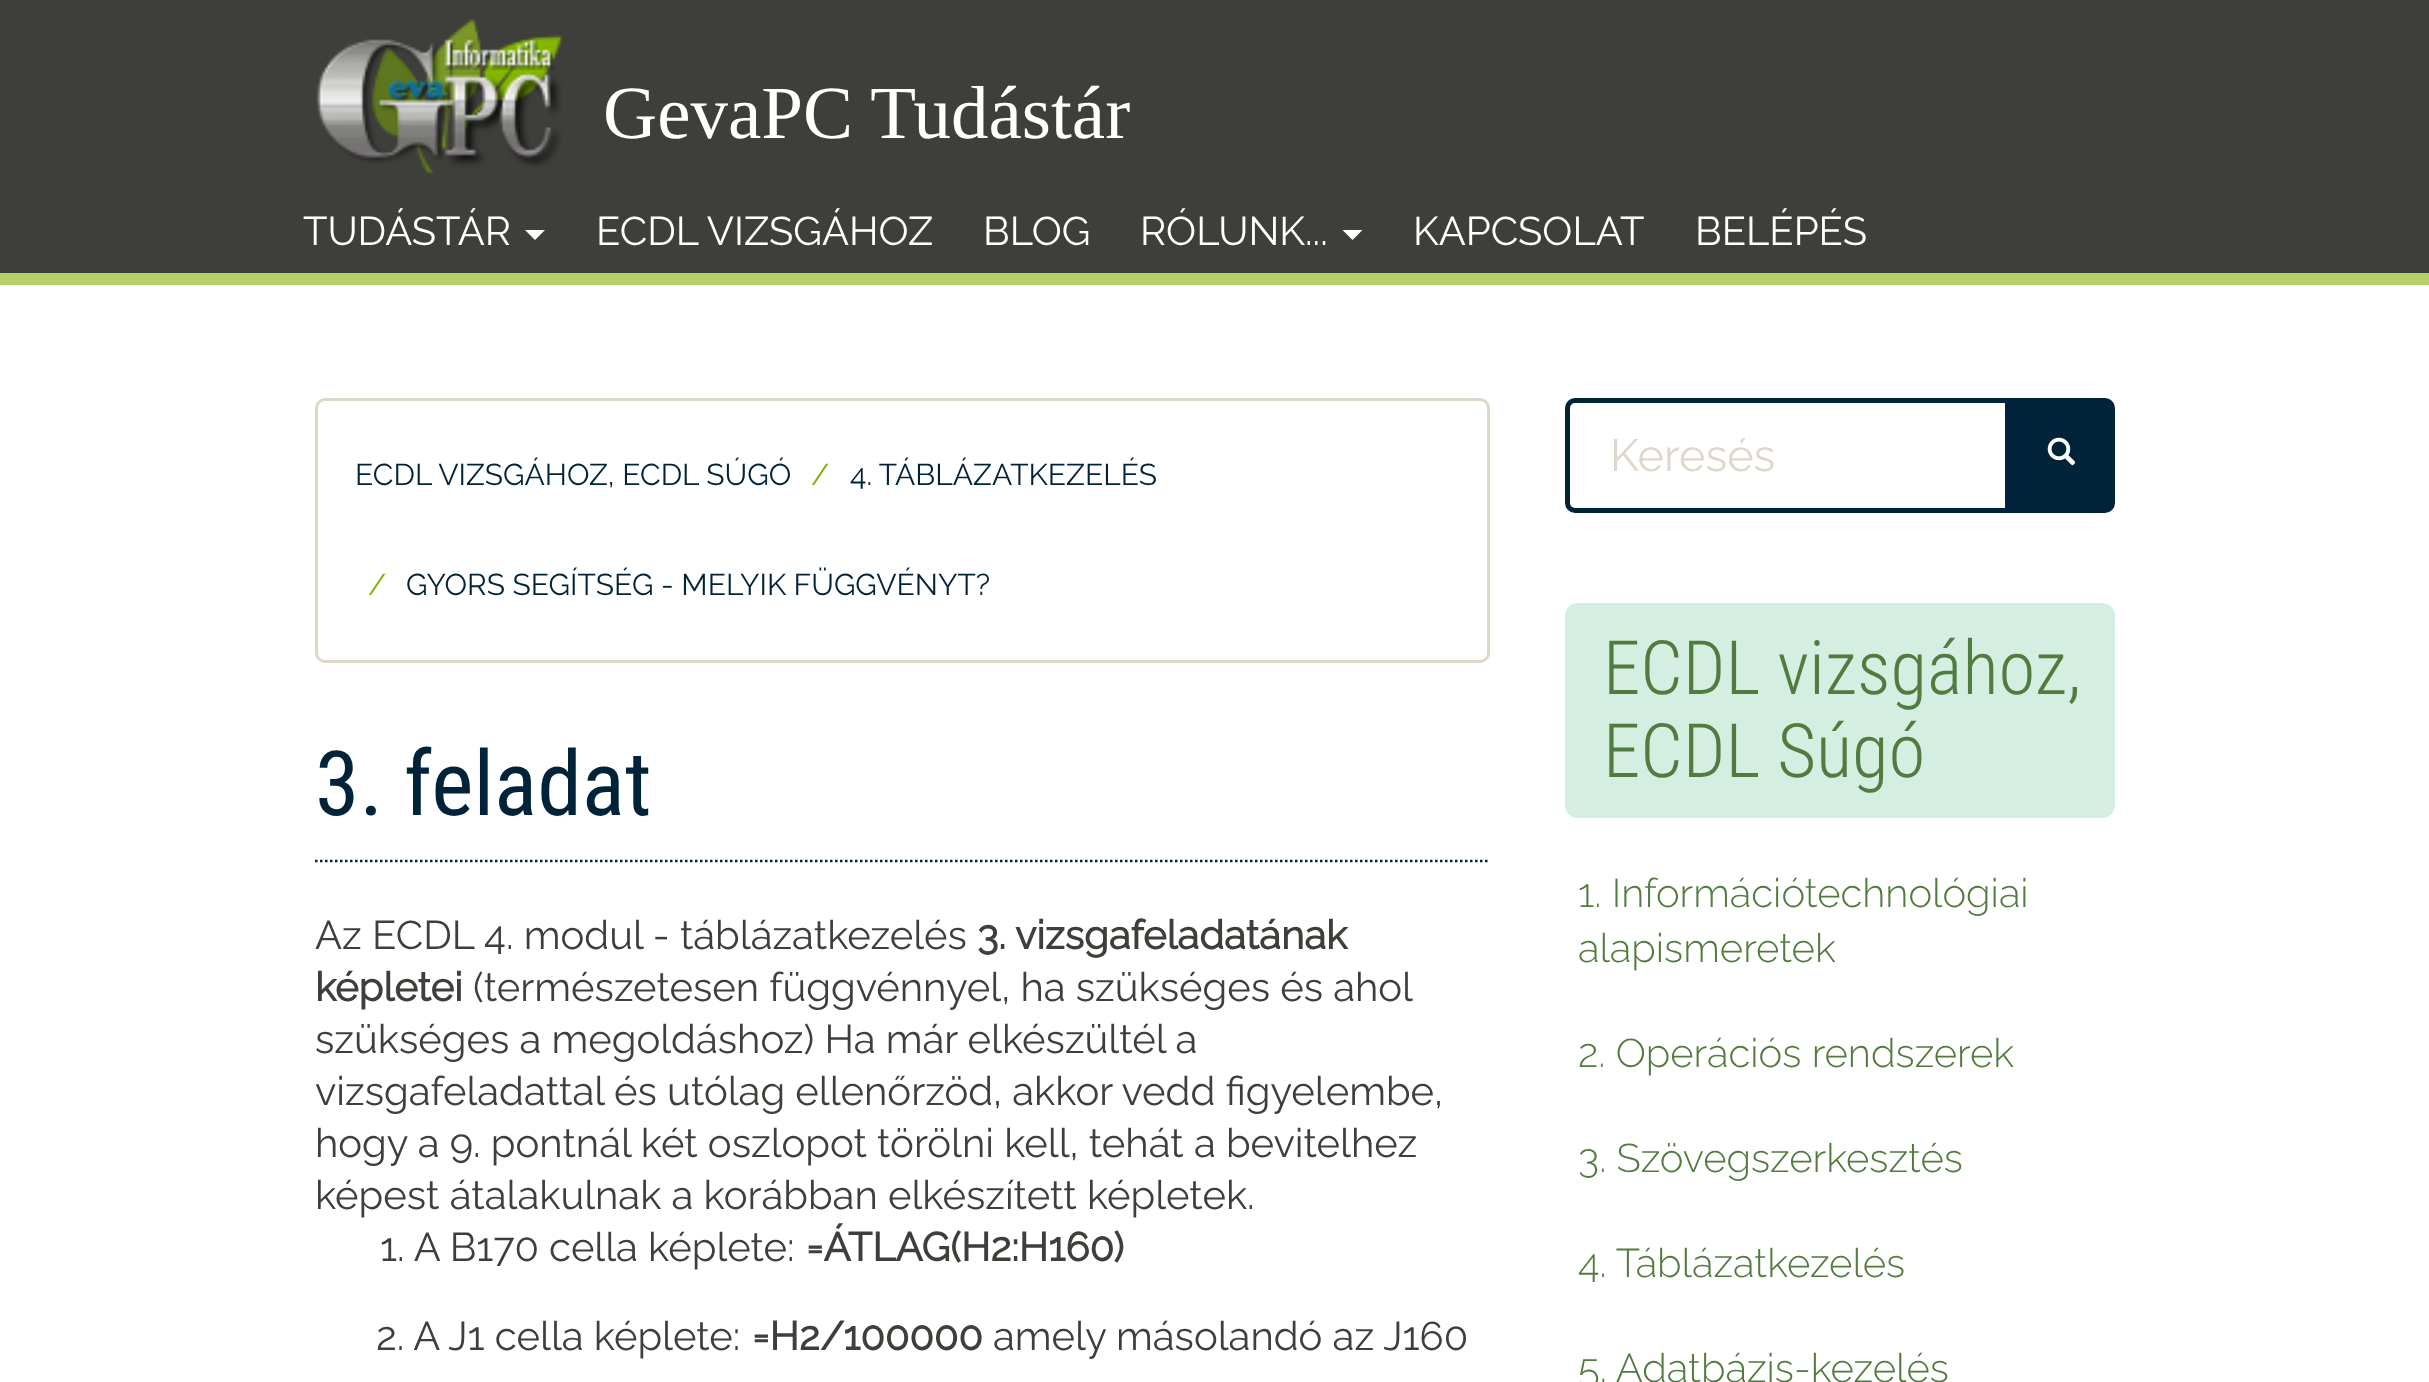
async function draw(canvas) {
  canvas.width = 2429
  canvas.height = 1382
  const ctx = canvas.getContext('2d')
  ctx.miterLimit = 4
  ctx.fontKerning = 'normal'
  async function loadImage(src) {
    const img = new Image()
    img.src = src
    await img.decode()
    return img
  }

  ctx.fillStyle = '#fff'
  ctx.fillRect(0, 0, 2429, 1382)
  ctx.fillStyle = '#3e3f3a'
  ctx.fillRect(0, 0, 2429, 273)
  ctx.fillStyle = '#b7cf6a'
  ctx.fillRect(0, 273, 2429, 12)
  ctx.drawImage(await loadImage('image0.png'), 316, 19, 247, 155)
  ctx.font = '75px Liberation Serif'
  ctx.fillStyle = '#fff'
  ctx.fillText('GevaPC Tudástár', 603, 138)
  ctx.font = '40px Raleway'
  ctx.fillText('TUDÁSTÁR', 303, 245)
  ctx.beginPath()
  ctx.moveTo(525, 230)
  ctx.lineTo(545, 230)
  ctx.lineTo(535, 240)
  ctx.closePath()
  ctx.fill()
  ctx.fillText('ECDL VIZSGÁHOZ', 596, 245)
  ctx.fillText('BLOG', 983, 245)
  ctx.fillText('RÓLUNK...', 1140, 245)
  ctx.beginPath()
  ctx.moveTo(1342.5, 230)
  ctx.lineTo(1362.5, 230)
  ctx.lineTo(1352.5, 240)
  ctx.closePath()
  ctx.fill()
  ctx.fillText('KAPCSOLAT', 1413, 245)
  ctx.fillText('BELÉPÉS', 1695, 245)
  ctx.beginPath()
  ctx.roundRect(316.5, 399.5, 1172, 262, 8.5)
  ctx.strokeStyle = '#dfd7ca'
  ctx.lineWidth = 3
  ctx.stroke()
  ctx.font = '30px Raleway'
  ctx.fillStyle = '#002339'
  ctx.fillText('ECDL VIZSGÁHOZ, ECDL SÚGÓ', 355, 485)
  ctx.fillStyle = '#80b104'
  ctx.fillText('/', 811, 485)
  ctx.fillStyle = '#002339'
  ctx.fillText('4. TÁBLÁZATKEZELÉS', 850, 485)
  ctx.fillStyle = '#80b104'
  ctx.fillText('/', 368, 595)
  ctx.fillStyle = '#002339'
  ctx.fillText('GYORS SEGÍTSÉG - MELYIK FÜGGVÉNYT?', 406, 595)
  ctx.beginPath()
  ctx.moveTo(315, 861)
  ctx.lineTo(1490, 861)
  ctx.strokeStyle = '#002339'
  ctx.lineWidth = 2.5
  ctx.setLineDash([2.5, 2.5])
  ctx.stroke()
  ctx.font = '90px Roboto Condensed'
  ctx.fillText('3. feladat', 315, 815)
  ctx.font = '40px Raleway'
  ctx.fillStyle = '#3e3f3a'
  ctx.fillText('Az ECDL 4. modul - táblázatkezelés', 315, 949)
  ctx.font = 'bold 40px Raleway'
  ctx.fillText('3. vizsgafeladatának', 977, 949)
  ctx.fillText('képletei', 315, 1001)
  ctx.font = '40px Raleway'
  ctx.fillText('(természetesen függvénnyel, ha szükséges és ahol', 473, 1001)
  ctx.fillText('szükséges a megoldáshoz) Ha már elkészültél a', 315, 1053)
  ctx.fillText('vizsgafeladattal és utólag ellenőrzöd, akkor vedd figyelembe,', 315, 1105)
  ctx.fillText('hogy a 9. pontnál két oszlopot törölni kell, tehát a bevitelhez', 315, 1157)
  ctx.fillText('képest átalakulnak a korábban elkészített képletek.', 315, 1209)
  ctx.fillText('1. A B170 cella képlete:', 380, 1261)
  ctx.font = 'bold 40px Raleway'
  ctx.fillText('=ÁTLAG(H2:H160)', 806, 1261)
  ctx.font = '40px Raleway'
  ctx.fillText('2. A J1 cella képlete:', 376, 1350)
  ctx.font = 'bold 40px Raleway'
  ctx.fillText('=H2/100000', 752, 1350)
  ctx.font = '40px Raleway'
  ctx.fillText('amely másolandó az J160', 993, 1350)
  ctx.beginPath()
  ctx.roundRect(1567.5, 400.5, 440, 110, [7.5, 0, 0, 7.5])
  ctx.lineWidth = 5
  ctx.setLineDash([])
  ctx.stroke()
  ctx.font = '45px Raleway'
  ctx.fillStyle = '#dfd7ca'
  ctx.fillText('Keresés', 1610, 471)
  ctx.fillStyle = '#002339'
  ctx.beginPath()
  ctx.roundRect(2008, 398, 107, 115, [0, 10, 10, 0])
  ctx.fill()
  ctx.drawImage(await loadImage('image1.png'), 2047, 437, 29, 29)
  ctx.fillStyle = '#d4eee1'
  ctx.beginPath()
  ctx.roundRect(1565, 603, 550, 215, 13)
  ctx.fill()
  ctx.font = '300 75px Roboto Condensed'
  ctx.fillStyle = '#527b3f'
  ctx.fillText('ECDL vizsgához,', 1603, 694)
  ctx.fillText('ECDL Súgó', 1603, 777)
  ctx.font = '300 40px Raleway'
  ctx.fillText('1. Információtechnológiai', 1578, 907)
  ctx.fillText('alapismeretek', 1578, 962)
  ctx.fillText('2. Operációs rendszerek', 1578, 1067)
  ctx.fillText('3. Szövegszerkesztés', 1578, 1172)
  ctx.fillText('4. Táblázatkezelés', 1578, 1277)
  ctx.fillText('5. Adatbázis-kezelés', 1578, 1382)
}

draw(document.querySelector('canvas'))
